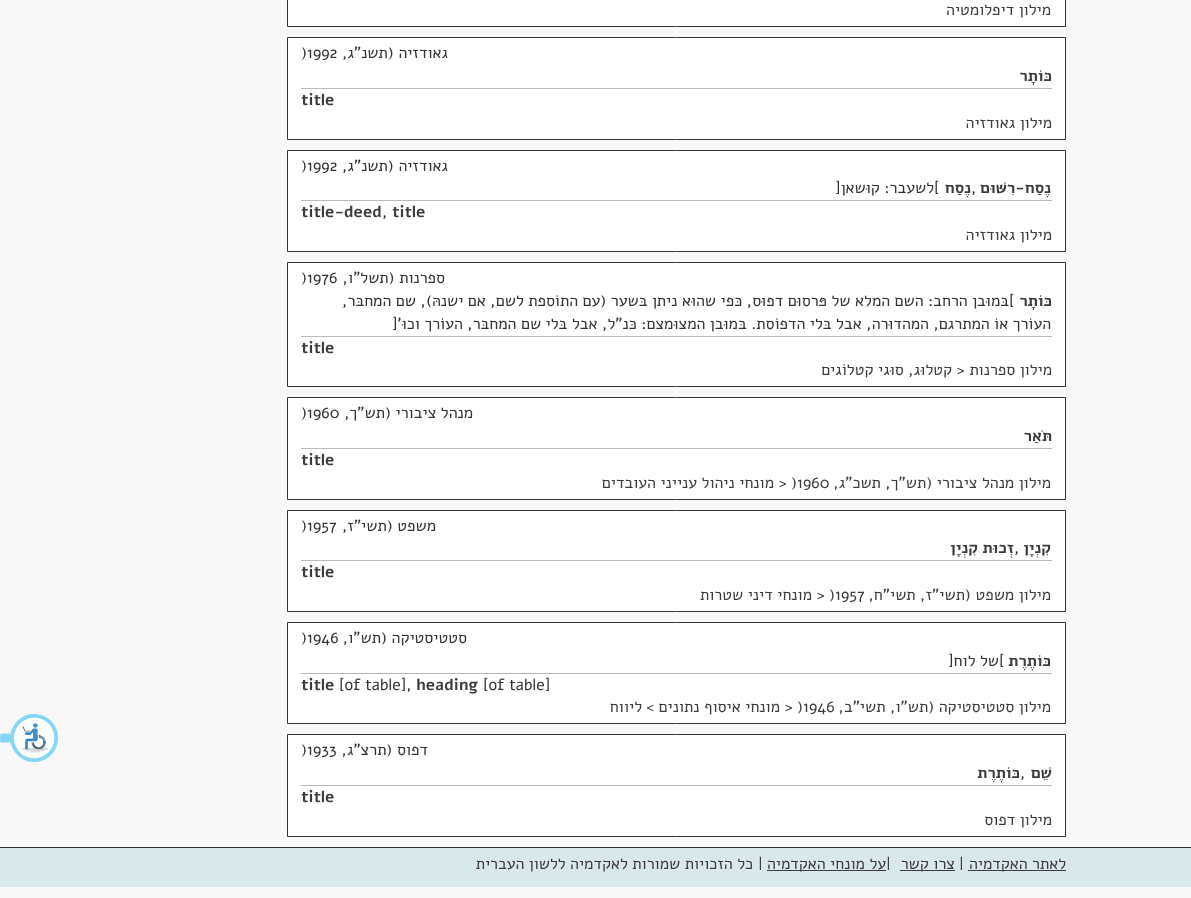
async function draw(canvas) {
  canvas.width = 1191
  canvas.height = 898
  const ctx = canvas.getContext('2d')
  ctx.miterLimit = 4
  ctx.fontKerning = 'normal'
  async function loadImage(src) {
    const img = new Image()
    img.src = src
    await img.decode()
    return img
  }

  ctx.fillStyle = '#f8f8f8'
  ctx.fillRect(0, 0, 1191, 898)
  ctx.fillStyle = '#fff'
  ctx.beginPath()
  ctx.rect(287.5, -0.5, 778, 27)
  ctx.fill()
  ctx.strokeStyle = '#333'
  ctx.stroke()
  ctx.direction = 'rtl'
  ctx.font = '16px Alef'
  ctx.fillStyle = '#3e3b40'
  ctx.fillText('מילון דיפלומטיה', 1051, 15)
  ctx.fillStyle = '#fff'
  ctx.beginPath()
  ctx.rect(287.5, 37.5, 778, 102)
  ctx.fill()
  ctx.stroke()
  ctx.fillStyle = '#333'
  ctx.fillText('גאודזיה (תשנ"ג,', 448, 58)
  ctx.direction = 'ltr'
  ctx.fillText(')1992', 301, 58)
  ctx.direction = 'rtl'
  ctx.font = 'bold 16px Alef'
  ctx.fillStyle = '#3e3b40'
  ctx.fillText('כּוֹתָר', 1052, 81)
  ctx.fillStyle = '#b9b9b9'
  ctx.fillRect(301, 88, 751, 1)
  ctx.direction = 'ltr'
  ctx.fillStyle = '#3e3b40'
  ctx.fillText('title', 301, 105)
  ctx.direction = 'rtl'
  ctx.font = '16px Alef'
  ctx.fillText('מילון גאודזיה', 1052, 128)
  ctx.fillStyle = '#fff'
  ctx.beginPath()
  ctx.rect(287.5, 150.5, 778, 101)
  ctx.fill()
  ctx.stroke()
  ctx.fillStyle = '#333'
  ctx.fillText('גאודזיה (תשנ"ג,', 448, 171)
  ctx.direction = 'ltr'
  ctx.fillText(')1992', 301, 171)
  ctx.direction = 'rtl'
  ctx.font = 'bold 16px Alef'
  ctx.fillStyle = '#3e3b40'
  ctx.fillText('נֶסַח-רִשּׁוּם', 1051, 193)
  ctx.direction = 'ltr'
  ctx.font = '16px Alef'
  ctx.fillStyle = '#333'
  ctx.fillText(',', 971, 193)
  ctx.direction = 'rtl'
  ctx.font = 'bold 16px Alef'
  ctx.fillStyle = '#3e3b40'
  ctx.fillText('נֶסַח', 971, 193)
  ctx.direction = 'ltr'
  ctx.font = '16px Alef'
  ctx.fillStyle = '#333'
  ctx.fillText('[', 934, 193)
  ctx.direction = 'rtl'
  ctx.fillText('לשעבר: קוּשאן', 934, 193)
  ctx.direction = 'ltr'
  ctx.fillText(']', 835, 193)
  ctx.fillStyle = '#b9b9b9'
  ctx.fillRect(301, 200, 751, 1)
  ctx.font = 'bold 16px Alef'
  ctx.fillStyle = '#3e3b40'
  ctx.fillText('title', 392, 217)
  ctx.font = '16px Alef'
  ctx.fillStyle = '#333'
  ctx.fillText(',', 382, 217)
  ctx.font = 'bold 16px Alef'
  ctx.fillStyle = '#3e3b40'
  ctx.fillText('title-deed', 301, 217)
  ctx.direction = 'rtl'
  ctx.font = '16px Alef'
  ctx.fillText('מילון גאודזיה', 1052, 240)
  ctx.fillStyle = '#fff'
  ctx.beginPath()
  ctx.rect(287.5, 262.5, 778, 124)
  ctx.fill()
  ctx.stroke()
  ctx.fillStyle = '#333'
  ctx.fillText('ספרנות (תשל"ו,', 445, 283)
  ctx.direction = 'ltr'
  ctx.fillText(')1976', 301, 283)
  ctx.direction = 'rtl'
  ctx.font = 'bold 16px Alef'
  ctx.fillStyle = '#3e3b40'
  ctx.fillText('כּוֹתָר', 1052, 306)
  ctx.direction = 'ltr'
  ctx.font = '16px Alef'
  ctx.fillStyle = '#333'
  ctx.fillText('[', 1009, 306)
  ctx.direction = 'rtl'
  ctx.fillText('בּמוּבן הרחב: השם המלא של פּרסוּם דפוּס, כּפי שהוּא ניתן בּשער (עם התוֹספת לשם, אם ישנהּ), שם המחבּר,', 1009, 306)
  ctx.fillText('העוֹרך אוֹ המתרגם, המהדוּרה, אבל בּלי הדפוֹסת. בּמוּבן המצוּמצם: כּנ"ל, אבל בּלי שם המחבּר, העוֹרך וכוּ\'', 1051, 329)
  ctx.direction = 'ltr'
  ctx.fillText(']', 392, 329)
  ctx.fillStyle = '#b9b9b9'
  ctx.fillRect(301, 336, 751, 1)
  ctx.font = 'bold 16px Alef'
  ctx.fillStyle = '#3e3b40'
  ctx.fillText('title', 301, 353)
  ctx.direction = 'rtl'
  ctx.font = '16px Alef'
  ctx.fillText('מילון ספרנות', 1052, 375)
  ctx.direction = 'ltr'
  ctx.fillStyle = '#333'
  ctx.fillText('>', 957, 375)
  ctx.direction = 'rtl'
  ctx.fillStyle = '#3e3b40'
  ctx.fillText('קטלוּג, סוּגי קטלוֹגים', 952, 375)
  ctx.fillStyle = '#fff'
  ctx.beginPath()
  ctx.rect(287.5, 397.5, 778, 102)
  ctx.fill()
  ctx.stroke()
  ctx.fillStyle = '#333'
  ctx.fillText('מנהל ציבורי (תש"ך,', 473, 418)
  ctx.direction = 'ltr'
  ctx.fillText(')1960', 301, 418)
  ctx.direction = 'rtl'
  ctx.font = 'bold 16px Alef'
  ctx.fillStyle = '#3e3b40'
  ctx.fillText('תֹּאַר', 1052, 441)
  ctx.fillStyle = '#b9b9b9'
  ctx.fillRect(301, 448, 751, 1)
  ctx.direction = 'ltr'
  ctx.fillStyle = '#3e3b40'
  ctx.fillText('title', 301, 465)
  ctx.direction = 'rtl'
  ctx.font = '16px Alef'
  ctx.fillText('מילון מנהל ציבורי (תש"ך, תשכ"ג,', 1051, 488)
  ctx.direction = 'ltr'
  ctx.fillText(')1960', 791, 488)
  ctx.fillStyle = '#333'
  ctx.fillText('>', 779, 488)
  ctx.direction = 'rtl'
  ctx.fillStyle = '#3e3b40'
  ctx.fillText('מונחי ניהול ענייני העובדים', 774, 488)
  ctx.fillStyle = '#fff'
  ctx.beginPath()
  ctx.rect(287.5, 510.5, 778, 101)
  ctx.fill()
  ctx.stroke()
  ctx.fillStyle = '#333'
  ctx.fillText('משפט (תשי"ז,', 436, 531)
  ctx.direction = 'ltr'
  ctx.fillText(')1957', 301, 531)
  ctx.direction = 'rtl'
  ctx.font = 'bold 16px Alef'
  ctx.fillStyle = '#3e3b40'
  ctx.fillText('קִנְיָן', 1051, 553)
  ctx.direction = 'ltr'
  ctx.font = '16px Alef'
  ctx.fillStyle = '#333'
  ctx.fillText(',', 1014, 553)
  ctx.direction = 'rtl'
  ctx.font = 'bold 16px Alef'
  ctx.fillStyle = '#3e3b40'
  ctx.fillText('זְכוּת קִנְיָן', 1014, 553)
  ctx.fillStyle = '#b9b9b9'
  ctx.fillRect(301, 560, 751, 1)
  ctx.direction = 'ltr'
  ctx.fillStyle = '#3e3b40'
  ctx.fillText('title', 301, 577)
  ctx.direction = 'rtl'
  ctx.font = '16px Alef'
  ctx.fillText('מילון משפט (תשי"ז, תשי"ח,', 1051, 600)
  ctx.direction = 'ltr'
  ctx.fillText(')1957', 829, 600)
  ctx.fillStyle = '#333'
  ctx.fillText('>', 817, 600)
  ctx.direction = 'rtl'
  ctx.fillStyle = '#3e3b40'
  ctx.fillText('מונחי דיני שטרות', 812, 600)
  ctx.fillStyle = '#fff'
  ctx.beginPath()
  ctx.rect(287.5, 622.5, 778, 101)
  ctx.fill()
  ctx.stroke()
  ctx.fillStyle = '#333'
  ctx.fillText('סטטיסטיקה (תש"ו,', 467, 643)
  ctx.direction = 'ltr'
  ctx.fillText(')1946', 301, 643)
  ctx.direction = 'rtl'
  ctx.font = 'bold 16px Alef'
  ctx.fillStyle = '#3e3b40'
  ctx.fillText('כּוֹתֶרֶת', 1051, 666)
  ctx.direction = 'ltr'
  ctx.font = '16px Alef'
  ctx.fillStyle = '#333'
  ctx.fillText('[', 999, 666)
  ctx.direction = 'rtl'
  ctx.fillText('של לוח', 999, 666)
  ctx.direction = 'ltr'
  ctx.fillText(']', 948, 666)
  ctx.fillStyle = '#b9b9b9'
  ctx.fillRect(301, 673, 751, 1)
  ctx.fillStyle = '#333'
  ctx.fillText('[of table]', 483, 690)
  ctx.font = 'bold 16px Alef'
  ctx.fillStyle = '#3e3b40'
  ctx.fillText('heading', 416, 690)
  ctx.font = '16px Alef'
  ctx.fillStyle = '#333'
  ctx.fillText('[of table],', 339, 690)
  ctx.font = 'bold 16px Alef'
  ctx.fillStyle = '#3e3b40'
  ctx.fillText('title', 301, 690)
  ctx.direction = 'rtl'
  ctx.font = '16px Alef'
  ctx.fillText('מילון סטטיסטיקה (תש"ו, תשי"ב,', 1051, 712)
  ctx.direction = 'ltr'
  ctx.fillText(')1946', 797, 712)
  ctx.fillStyle = '#333'
  ctx.fillText('>', 785, 712)
  ctx.direction = 'rtl'
  ctx.fillStyle = '#3e3b40'
  ctx.fillText('מונחי איסוף נתונים >', 780, 712)
  ctx.fillText('ליווח', 642, 712)
  ctx.fillStyle = '#fff'
  ctx.beginPath()
  ctx.rect(287.5, 734.5, 778, 102)
  ctx.fill()
  ctx.stroke()
  ctx.fillStyle = '#333'
  ctx.fillText('דפוס (תרצ"ג,', 428, 755)
  ctx.direction = 'ltr'
  ctx.fillText(')1933', 301, 755)
  ctx.direction = 'rtl'
  ctx.font = 'bold 16px Alef'
  ctx.fillStyle = '#3e3b40'
  ctx.fillText('שֵׁם', 1052, 778)
  ctx.direction = 'ltr'
  ctx.font = '16px Alef'
  ctx.fillStyle = '#333'
  ctx.fillText(',', 1020, 778)
  ctx.direction = 'rtl'
  ctx.font = 'bold 16px Alef'
  ctx.fillStyle = '#3e3b40'
  ctx.fillText('כּוֹתֶרֶת', 1020, 778)
  ctx.fillStyle = '#b9b9b9'
  ctx.fillRect(301, 785, 751, 1)
  ctx.direction = 'ltr'
  ctx.fillStyle = '#3e3b40'
  ctx.fillText('title', 301, 802)
  ctx.direction = 'rtl'
  ctx.font = '16px Alef'
  ctx.fillText('מילון דפוס', 1052, 825)
  ctx.fillStyle = '#d9e8eb'
  ctx.fillRect(0, 848, 1191, 39)
  ctx.fillStyle = '#333'
  ctx.fillRect(0, 847, 1191, 1)
  ctx.fillStyle = '#3e3b40'
  ctx.fillRect(968, 870, 98, 1)
  ctx.fillText('לאתר האקדמיה', 1066, 869)
  ctx.direction = 'ltr'
  ctx.fillText('|', 959, 869)
  ctx.fillRect(900, 870, 55, 1)
  ctx.direction = 'rtl'
  ctx.fillText('צרו קשר', 955, 869)
  ctx.direction = 'ltr'
  ctx.fillText('|', 886, 869)
  ctx.fillRect(767, 870, 119, 1)
  ctx.direction = 'rtl'
  ctx.fillText('על מונחי האקדמיה', 886, 869)
  ctx.direction = 'ltr'
  ctx.fillText('|', 758, 869)
  ctx.direction = 'rtl'
  ctx.fillText('כל הזכויות שמורות לאקדמיה ללשון העברית', 753, 869)
  ctx.drawImage(await loadImage('image0.png'), 0, 714, 58, 48)
}

draw(document.querySelector('canvas'))
